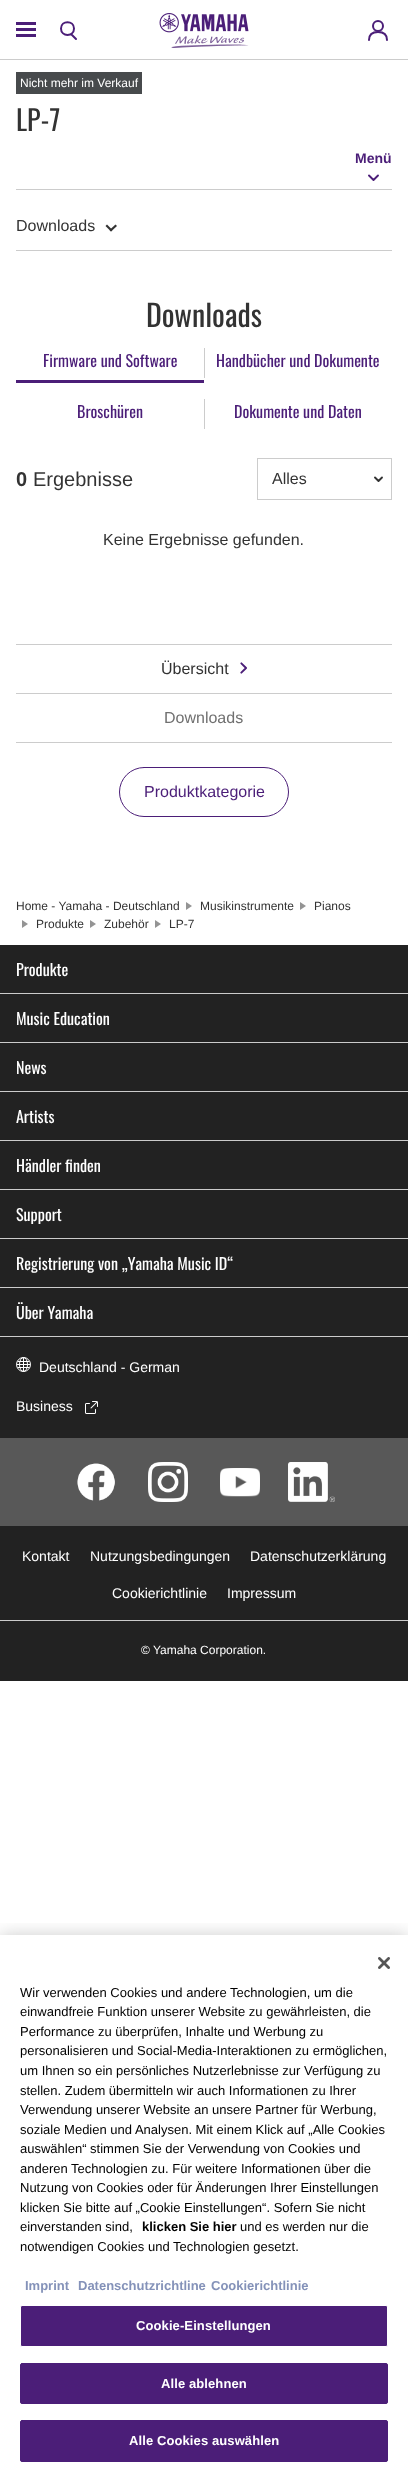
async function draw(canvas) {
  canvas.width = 408
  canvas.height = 2478
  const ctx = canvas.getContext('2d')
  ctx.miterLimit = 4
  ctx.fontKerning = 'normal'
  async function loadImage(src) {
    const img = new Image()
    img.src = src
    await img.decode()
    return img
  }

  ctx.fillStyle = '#fff'
  ctx.fillRect(0, 0, 408, 2478)
  ctx.fillStyle = '#ccc'
  ctx.fillRect(0, 59, 408, 1)
  ctx.fillStyle = '#4b1e78'
  ctx.fillRect(16, 28, 20, 3)
  ctx.fillRect(16, 22, 20, 3)
  ctx.fillRect(16, 34, 20, 3)
  ctx.beginPath()
  ctx.moveTo(71, 34)
  ctx.lineTo(76, 39)
  ctx.closePath()
  ctx.moveTo(61, 28.5)
  ctx.bezierCurveTo(61, 20, 74, 20, 74, 28.5)
  ctx.bezierCurveTo(74, 37, 61, 37, 61, 28.5)
  ctx.closePath()
  ctx.strokeStyle = '#4b1e78'
  ctx.lineWidth = 2
  ctx.lineCap = 'round'
  ctx.lineJoin = 'round'
  ctx.stroke()
  ctx.drawImage(await loadImage('image0.png'), 159, 13, 90, 35)
  ctx.beginPath()
  ctx.arc(378, 26, 5, 0, 2 * Math.PI)
  ctx.stroke()
  ctx.beginPath()
  ctx.moveTo(369, 40)
  ctx.bezierCurveTo(369, 34.5, 372.5, 32, 378, 32)
  ctx.bezierCurveTo(383.5, 32, 387, 34.5, 387, 40)
  ctx.lineJoin = 'miter'
  ctx.stroke()
  ctx.fillStyle = '#ccc'
  ctx.fillRect(16, 189, 376, 1)
  ctx.fillStyle = '#474a4c'
  ctx.fillRect(16, 72, 126, 22)
  ctx.font = '12px Liberation Sans'
  ctx.fillStyle = '#fff'
  ctx.fillText('Nicht mehr im Verkauf', 20, 87)
  ctx.font = '28px Oswald'
  ctx.fillStyle = '#333'
  ctx.fillText('LP-7', 16, 131)
  ctx.font = 'bold 14px Liberation Sans'
  ctx.fillStyle = '#4b1e78'
  ctx.fillText('Menü', 355, 163)
  ctx.beginPath()
  ctx.moveTo(378, 175.5)
  ctx.lineTo(373.5, 180)
  ctx.lineTo(369, 175.5)
  ctx.lineWidth = 1.9
  ctx.lineJoin = 'round'
  ctx.stroke()
  ctx.fillStyle = '#ccc'
  ctx.fillRect(16, 250, 376, 1)
  ctx.font = '16px Liberation Sans'
  ctx.fillStyle = '#333'
  ctx.fillText('Downloads', 16, 231)
  ctx.beginPath()
  ctx.moveTo(117, 226)
  ctx.lineTo(111, 231.5)
  ctx.lineTo(109.5, 230)
  ctx.lineTo(115.5, 224.5)
  ctx.closePath()
  ctx.fill()
  ctx.beginPath()
  ctx.moveTo(112.5, 230)
  ctx.lineTo(111, 231.5)
  ctx.lineTo(105.5, 226)
  ctx.lineTo(107, 224.5)
  ctx.closePath()
  ctx.fill()
  ctx.font = '30px Oswald'
  ctx.fillText('Downloads', 146, 327)
  ctx.fillStyle = '#4b1e78'
  ctx.fillRect(16, 380, 188, 3)
  ctx.font = '16px Oswald'
  ctx.fillText('Firmware und Software', 43, 367)
  ctx.fillStyle = '#ccc'
  ctx.fillRect(204, 348, 1, 30)
  ctx.fillStyle = '#4b1e78'
  ctx.fillText('Handbücher und Dokumente', 216, 367)
  ctx.fillText('Broschüren', 77, 418)
  ctx.fillStyle = '#ccc'
  ctx.fillRect(204, 399, 1, 30)
  ctx.fillStyle = '#4b1e78'
  ctx.fillText('Dokumente und Daten', 234, 418)
  ctx.font = 'bold 20px Liberation Sans'
  ctx.fillStyle = '#333'
  ctx.fillText('0', 16, 486)
  ctx.font = '20px Liberation Sans'
  ctx.fillText('Ergebnisse', 33, 486)
  ctx.strokeStyle = '#ccc'
  ctx.lineWidth = 1
  ctx.lineJoin = 'miter'
  ctx.strokeRect(257.5, 458.5, 134, 41)
  ctx.font = '16px Liberation Sans'
  ctx.fillText('Alles', 272, 484)
  ctx.beginPath()
  ctx.moveTo(382, 477.5)
  ctx.lineTo(378.5, 481)
  ctx.lineTo(375, 477.5)
  ctx.strokeStyle = '#333'
  ctx.lineWidth = 1.9
  ctx.lineJoin = 'round'
  ctx.stroke()
  ctx.fillText('Keine Ergebnisse gefunden.', 103, 545)
  ctx.fillStyle = '#ccc'
  ctx.fillRect(16, 644, 376, 1)
  ctx.fillStyle = '#333'
  ctx.fillText('Übersicht', 161, 674)
  ctx.drawImage(await loadImage('image1.png'), 240, 662, 7, 12)
  ctx.fillStyle = '#ccc'
  ctx.fillRect(16, 693, 376, 1)
  ctx.fillRect(16, 742, 376, 1)
  ctx.fillStyle = '#707070'
  ctx.fillText('Downloads', 164, 723)
  ctx.beginPath()
  ctx.roundRect(119.5, 767.5, 169, 49, 24.5)
  ctx.strokeStyle = '#4b1e78'
  ctx.lineWidth = 1
  ctx.lineJoin = 'miter'
  ctx.stroke()
  ctx.fillStyle = '#4b1e78'
  ctx.fillText('Produktkategorie', 144, 797)
  ctx.font = '12px Liberation Sans'
  ctx.fillStyle = '#333'
  ctx.fillText('Home - Yamaha - Deutschland', 16, 910)
  ctx.fillStyle = '#949494'
  ctx.beginPath()
  ctx.moveTo(186, 910)
  ctx.lineTo(186, 902)
  ctx.lineTo(192, 906)
  ctx.closePath()
  ctx.fill()
  ctx.fillStyle = '#333'
  ctx.fillText('Musikinstrumente', 200, 910)
  ctx.fillStyle = '#949494'
  ctx.beginPath()
  ctx.moveTo(300, 910)
  ctx.lineTo(300, 902)
  ctx.lineTo(306, 906)
  ctx.closePath()
  ctx.fill()
  ctx.fillStyle = '#333'
  ctx.fillText('Pianos', 314, 910)
  ctx.fillStyle = '#949494'
  ctx.beginPath()
  ctx.moveTo(22, 928)
  ctx.lineTo(22, 920)
  ctx.lineTo(28, 924)
  ctx.closePath()
  ctx.fill()
  ctx.fillStyle = '#333'
  ctx.fillText('Produkte', 36, 928)
  ctx.fillStyle = '#949494'
  ctx.beginPath()
  ctx.moveTo(90, 928)
  ctx.lineTo(90, 920)
  ctx.lineTo(96, 924)
  ctx.closePath()
  ctx.fill()
  ctx.fillStyle = '#333'
  ctx.fillText('Zubehör', 104, 928)
  ctx.fillStyle = '#949494'
  ctx.beginPath()
  ctx.moveTo(155, 928)
  ctx.lineTo(155, 920)
  ctx.lineTo(161, 924)
  ctx.closePath()
  ctx.fill()
  ctx.fillStyle = '#333'
  ctx.fillText('LP-7', 169, 928)
  ctx.fillStyle = '#222'
  ctx.fillRect(0, 945, 408, 391)
  ctx.fillStyle = '#ccc'
  ctx.fillRect(0, 993, 408, 1)
  ctx.font = '16px Oswald'
  ctx.fillStyle = '#fff'
  ctx.fillText('Produkte', 16, 976)
  ctx.fillStyle = '#ccc'
  ctx.fillRect(0, 1042, 408, 1)
  ctx.fillStyle = '#fff'
  ctx.fillText('Music Education', 16, 1025)
  ctx.fillStyle = '#ccc'
  ctx.fillRect(0, 1091, 408, 1)
  ctx.fillStyle = '#fff'
  ctx.fillText('News', 16, 1074)
  ctx.fillStyle = '#ccc'
  ctx.fillRect(0, 1140, 408, 1)
  ctx.fillStyle = '#fff'
  ctx.fillText('Artists', 16, 1123)
  ctx.fillStyle = '#ccc'
  ctx.fillRect(0, 1189, 408, 1)
  ctx.fillStyle = '#fff'
  ctx.fillText('Händler finden', 16, 1172)
  ctx.fillStyle = '#ccc'
  ctx.fillRect(0, 1238, 408, 1)
  ctx.fillStyle = '#fff'
  ctx.fillText('Support', 16, 1221)
  ctx.fillStyle = '#ccc'
  ctx.fillRect(0, 1287, 408, 1)
  ctx.fillStyle = '#fff'
  ctx.fillText('Registrierung von „Yamaha Music ID“', 16, 1270)
  ctx.fillStyle = '#ccc'
  ctx.fillRect(0, 1336, 408, 1)
  ctx.fillStyle = '#fff'
  ctx.fillText('Über Yamaha', 16, 1319)
  ctx.fillStyle = '#222'
  ctx.fillRect(0, 1337, 408, 101)
  ctx.drawImage(await loadImage('image2.png'), 16, 1357, 15, 15)
  ctx.font = '14px Liberation Sans'
  ctx.fillStyle = '#fff'
  ctx.fillText('Deutschland - German', 39, 1372)
  ctx.fillText('Business', 16, 1411)
  ctx.drawImage(await loadImage('image3.png'), 85, 1401, 13, 13)
  ctx.fillStyle = '#585858'
  ctx.fillRect(0, 1438, 408, 88)
  ctx.drawImage(await loadImage('image4.png'), 77, 1463, 38, 38)
  ctx.drawImage(await loadImage('image5.png'), 148, 1462, 40, 40)
  ctx.drawImage(await loadImage('image6.png'), 220, 1468, 40, 29)
  ctx.drawImage(await loadImage('image7.png'), 288, 1462, 47, 40)
  ctx.fillStyle = '#222'
  ctx.fillRect(0, 1526, 408, 155)
  ctx.fillStyle = '#fff'
  ctx.fillText('Kontakt', 22, 1561)
  ctx.fillText('Nutzungsbedingungen', 90, 1561)
  ctx.fillText('Datenschutzerklärung', 250, 1561)
  ctx.fillText('Cookierichtlinie', 112, 1598)
  ctx.fillText('Impressum', 227, 1598)
  ctx.fillStyle = '#ccc'
  ctx.fillRect(0, 1620, 408, 1)
  ctx.font = '12px Liberation Sans'
  ctx.fillStyle = '#fff'
  ctx.fillText('© Yamaha Corporation.', 141, 1654)
  ctx.save()
  ctx.beginPath()
  ctx.rect(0, 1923, 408, 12)
  ctx.clip()
  ctx.fillStyle = '#00000033'
  ctx.filter = 'blur(9px)'
  ctx.beginPath()
  ctx.rect(0, 1935, 408, 543)
  ctx.fill()
  ctx.filter = 'none'
  ctx.restore()
  ctx.drawImage(await loadImage('image8.png'), 378, 1957, 12, 12)
  ctx.font = '13px Liberation Sans'
  ctx.fillStyle = '#000'
  ctx.fillText('Wir verwenden Cookies und andere Technologien, um die', 20, 1997)
  ctx.fillText('einwandfreie Funktion unserer Website zu gewährleisten, die', 20, 2016)
  ctx.fillText('Performance zu überprüfen, Inhalte und Werbung zu', 20, 2036)
  ctx.fillText('personalisieren und Social-Media-Interaktionen zu ermöglichen,', 20, 2055)
  ctx.fillText('um Ihnen so ein persönliches Nutzerlebnisse zur Verfügung zu', 20, 2075)
  ctx.fillText('stellen. Zudem übermitteln wir auch Informationen zu Ihrer', 20, 2095)
  ctx.fillText('Verwendung unserer Website an unsere Partner für Werbung,', 20, 2114)
  ctx.fillText('soziale Medien und Analysen. Mit einem Klick auf „Alle Cookies', 20, 2134)
  ctx.fillText('auswählen“ stimmen Sie der Verwendung von Cookies und', 20, 2153)
  ctx.fillText('anderen Technologien zu. Für weitere Informationen über die', 20, 2173)
  ctx.fillText('Nutzung von Cookies oder für Änderungen Ihrer Einstellungen', 20, 2192)
  ctx.fillText('klicken Sie bitte auf „Cookie Einstellungen“. Sofern Sie nicht', 20, 2212)
  ctx.fillText('einverstanden sind,', 20, 2231)
  ctx.font = 'bold 13px Liberation Sans'
  ctx.fillText('klicken Sie hier', 142, 2231)
  ctx.font = '13px Liberation Sans'
  ctx.fillText('und es werden nur die', 240, 2231)
  ctx.fillText('notwendigen Cookies und Technologien gesetzt.', 20, 2251)
  ctx.font = 'bold 13px Liberation Sans'
  ctx.fillStyle = '#8492b9'
  ctx.fillText('Imprint', 25, 2290)
  ctx.fillText('Datenschutzrichtline', 78, 2290)
  ctx.fillText('Cookierichtlinie', 211, 2290)
  ctx.fillStyle = '#4b1e78'
  ctx.beginPath()
  ctx.roundRect(20.5, 2305.5, 367, 41, 1.5)
  ctx.fill()
  ctx.strokeStyle = '#fff'
  ctx.stroke()
  ctx.letterSpacing = '0.1px'
  ctx.fillStyle = '#fff'
  ctx.fillText('Cookie-Einstellungen', 136, 2330)
  ctx.fillStyle = '#4b1e78'
  ctx.beginPath()
  ctx.roundRect(20.5, 2363.5, 367, 40, 1.5)
  ctx.fill()
  ctx.strokeStyle = '#4b1e78'
  ctx.stroke()
  ctx.fillStyle = '#fff'
  ctx.fillText('Alle ablehnen', 161, 2388)
  ctx.fillStyle = '#4b1e78'
  ctx.beginPath()
  ctx.roundRect(20.5, 2420.5, 367, 41, 1.5)
  ctx.fill()
  ctx.stroke()
  ctx.fillStyle = '#fff'
  ctx.fillText('Alle Cookies auswählen', 129, 2445)
}

draw(document.querySelector('canvas'))
